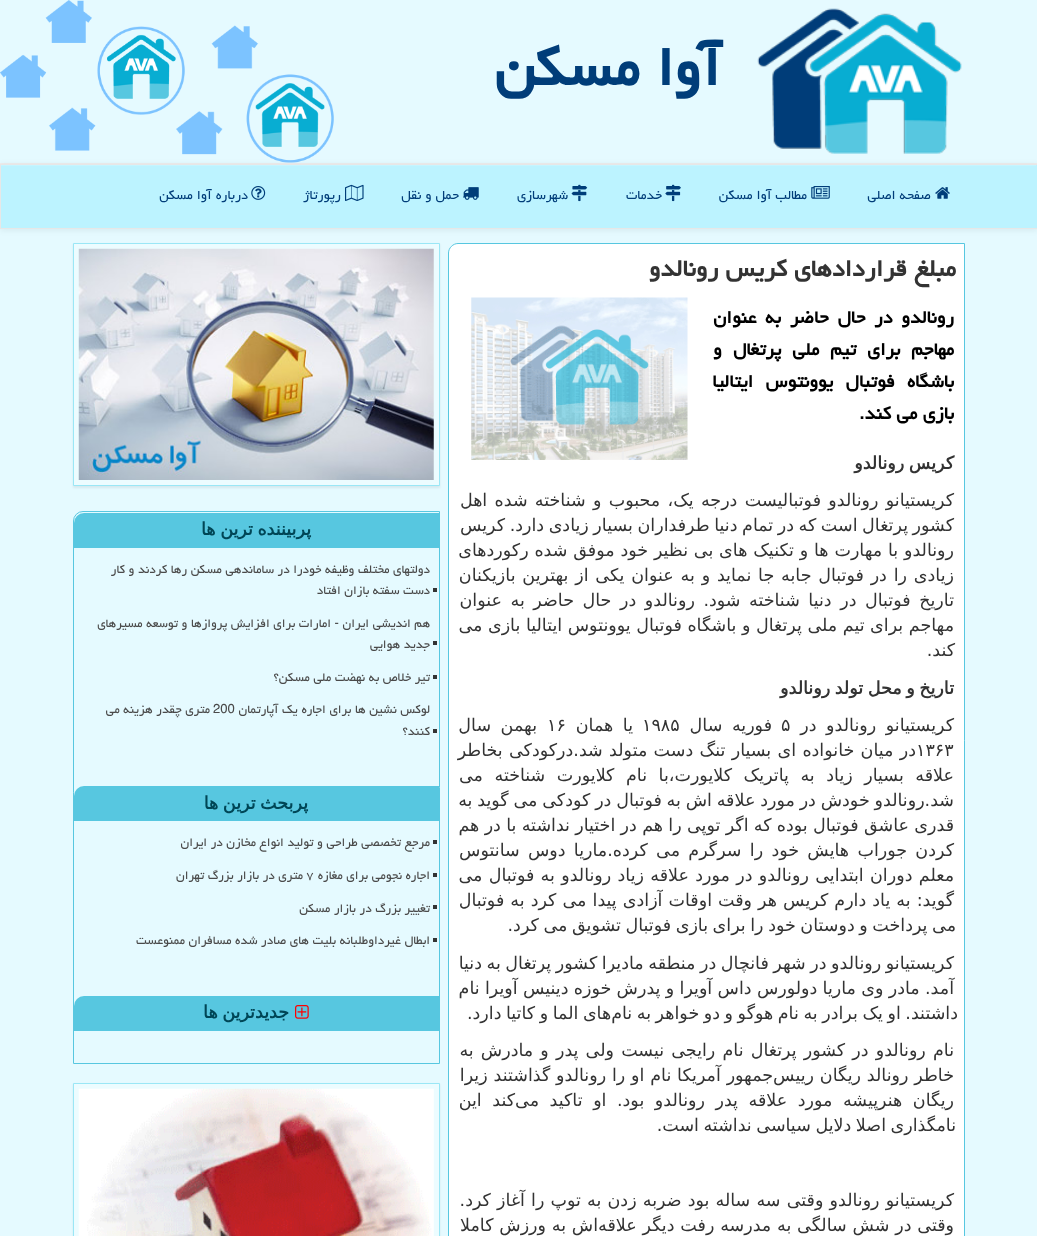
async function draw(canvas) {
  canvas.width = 1037
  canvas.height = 1236
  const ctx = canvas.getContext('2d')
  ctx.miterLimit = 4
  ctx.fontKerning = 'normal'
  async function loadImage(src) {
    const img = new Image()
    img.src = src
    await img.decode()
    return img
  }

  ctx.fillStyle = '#e5faff'
  ctx.fillRect(0, 0, 1037, 1236)
  ctx.drawImage(await loadImage('image0.png'), 0, 0, 334, 163)
  ctx.fillStyle = '#eee'
  ctx.fillRect(0, 163, 1037, 1)
  ctx.drawImage(await loadImage('image1.png'), 757, 8, 205, 146)
  ctx.direction = 'rtl'
  ctx.font = 'bold 70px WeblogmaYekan'
  ctx.fillStyle = '#003d79'
  ctx.fillText('آوا مسكن', 721, 85)
  ctx.fillStyle = '#00000012'
  ctx.filter = 'blur(3px)'
  ctx.beginPath()
  ctx.rect(0, 165, 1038, 65)
  ctx.fill()
  ctx.filter = 'none'
  ctx.fillStyle = '#bcf3ff'
  ctx.fillRect(1, 165, 1036, 63)
  ctx.fillStyle = '#c6f5ff'
  ctx.fillRect(1, 165, 1035, 1)
  ctx.strokeStyle = '#e7e7e7'
  ctx.strokeRect(0.5, 164.5, 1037, 64)
  ctx.drawImage(await loadImage('image2.png'), 935, 187, 15, 12)
  ctx.font = '16.25px WeblogmaYekan'
  ctx.fillStyle = '#003d79'
  ctx.fillText('صفحه اصلی', 931, 199)
  ctx.drawImage(await loadImage('image3.png'), 811, 186, 19, 13)
  ctx.fillText('مطالب آوا مسكن', 807, 199)
  ctx.drawImage(await loadImage('image4.png'), 665, 184, 16, 18)
  ctx.fillText('خدمات', 662, 199)
  ctx.drawImage(await loadImage('image5.png'), 571, 184, 17, 18)
  ctx.fillText('شهرسازی', 568, 199)
  ctx.drawImage(await loadImage('image6.png'), 463, 187, 16, 13)
  ctx.fillText('حمل و نقل', 459, 199)
  ctx.drawImage(await loadImage('image7.png'), 345, 184, 19, 17)
  ctx.fillText('رپورتاژ', 341, 199)
  ctx.drawImage(await loadImage('image8.png'), 251, 186, 15, 14)
  ctx.fillText('درباره آوا مسكن', 248, 199)
  ctx.fillStyle = '#fff'
  ctx.beginPath()
  ctx.moveTo(458, 243.5)
  ctx.lineTo(964.5, 243.5)
  ctx.lineTo(964.5, 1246.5)
  ctx.lineTo(448.5, 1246.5)
  ctx.lineTo(448.5, 253)
  ctx.bezierCurveTo(448.5, 248, 453, 243.5, 458, 243.5)
  ctx.closePath()
  ctx.fill()
  ctx.strokeStyle = '#57c7e0'
  ctx.stroke()
  ctx.font = 'bold 29.75px WeblogmaYekan'
  ctx.fillStyle = '#333'
  ctx.fillText('مبلغ قراردادهای كریس رونالدو', 956, 276)
  ctx.wordSpacing = '3.5px'
  ctx.font = 'bold 22.5px WeblogmaYekan'
  ctx.fillStyle = '#000'
  ctx.fillText('رونالدو در حال حاضر به عنوان', 954, 323)
  ctx.wordSpacing = '5.75px'
  ctx.fillText('مهاجم برای تیم ملی پرتغال و', 954, 355)
  ctx.wordSpacing = '7px'
  ctx.fillText('باشگاه فوتبال یوونتوس ایتالیا', 954, 387)
  ctx.wordSpacing = '0px'
  ctx.fillText('بازی می كند.', 954, 419)
  ctx.drawImage(await loadImage('image9.png'), 471, 297, 217, 163)
  ctx.wordSpacing = '-1px'
  ctx.font = 'bold 17.5px DejaVu Sans'
  ctx.fillStyle = '#333'
  ctx.fillText('کریس رونالدو', 954, 469)
  ctx.wordSpacing = '1.75px'
  ctx.font = '17.5px DejaVu Sans'
  ctx.fillText('کریستیانو رونالدو فوتبالیست درجه یک، محبوب و شناخته شده اهل', 954, 506)
  ctx.wordSpacing = '-1px'
  ctx.fillText('کشور پرتغال است که در تمام دنیا طرفداران بسیار زیادی دارد. کریس', 954, 531)
  ctx.wordSpacing = '0.25px'
  ctx.fillText('رونالدو با مهارت ها و تکنیک های بی نظیر خود موفق شده رکوردهای', 954, 556)
  ctx.wordSpacing = '1.25px'
  ctx.fillText('زیادی را در فوتبال جابه جا نماید و به عنوان یکی از بهترین بازیکنان', 954, 581)
  ctx.wordSpacing = '3px'
  ctx.fillText('تاریخ فوتبال در دنیا شناخته شود. رونالدو در حال حاضر به عنوان', 954, 606)
  ctx.wordSpacing = '0px'
  ctx.fillText('مهاجم برای تیم ملی پرتغال و باشگاه فوتبال یوونتوس ایتالیا بازی می', 954, 631)
  ctx.fillText('کند.', 955, 656)
  ctx.wordSpacing = '-1px'
  ctx.font = 'bold 17.5px DejaVu Sans'
  ctx.fillText('تاریخ و محل تولد رونالدو', 954, 694)
  ctx.wordSpacing = '4px'
  ctx.font = '17.5px DejaVu Sans'
  ctx.fillText('کریستیانو رونالدو در', 954, 731)
  ctx.wordSpacing = '0px'
  ctx.direction = 'ltr'
  ctx.fillText('۵', 781, 731)
  ctx.wordSpacing = '4px'
  ctx.direction = 'rtl'
  ctx.fillText('فوریه سال', 772, 731)
  ctx.wordSpacing = '0px'
  ctx.direction = 'ltr'
  ctx.fillText('۱۹۸۵', 642, 731)
  ctx.wordSpacing = '4px'
  ctx.direction = 'rtl'
  ctx.fillText('یا همان', 633, 731)
  ctx.wordSpacing = '0px'
  ctx.direction = 'ltr'
  ctx.fillText('۱۶', 547, 731)
  ctx.wordSpacing = '4px'
  ctx.direction = 'rtl'
  ctx.fillText('بهمن سال', 537, 731)
  ctx.wordSpacing = '0px'
  ctx.direction = 'ltr'
  ctx.fillText('۱۳۶۳', 916, 756)
  ctx.wordSpacing = '0.75px'
  ctx.direction = 'rtl'
  ctx.fillText('در میان خانواده ای بسیار تنگ دست متولد شد.درکودکی بخاطر', 916, 756)
  ctx.wordSpacing = '6px'
  ctx.fillText('علاقه بسیار زیاد به پاتریک کلایورت،با نام کلایورت شناخته می', 954, 781)
  ctx.wordSpacing = '-0.75px'
  ctx.fillText('شد.رونالدو خودش در مورد علاقه اش به فوتبال در کودکی می گوید به', 954, 806)
  ctx.wordSpacing = '-0.25px'
  ctx.fillText('قدری عاشق فوتبال بوده که اگر توپی را هم در اختیار نداشته با در هم', 954, 831)
  ctx.wordSpacing = '2.75px'
  ctx.fillText('کردن جوراب هایش خود را سرگرم می کرده.ماریا دوس سانتوس', 954, 856)
  ctx.wordSpacing = '0.75px'
  ctx.fillText('معلم دوران ابتدایی رونالدو در مورد علاقه زیاد رونالدو به فوتبال می', 954, 881)
  ctx.wordSpacing = '0.5px'
  ctx.fillText('گوید: به یاد دارم کریس هر وقت اوقات آزادی پیدا می کرد به فوتبال', 954, 906)
  ctx.wordSpacing = '-1px'
  ctx.fillText('می پرداخت و دوستان خود را برای بازی فوتبال تشویق می کرد.', 956, 931)
  ctx.fillText('کریستیانو رونالدو در شهر فانچال در منطقه مادیرا کشور پرتغال به دنیا', 954, 969)
  ctx.wordSpacing = '-0.25px'
  ctx.fillText('آمد. مادر وی ماریا دولورس داس آویرا و پدرش خوزه دینیس آویرا نام', 954, 994)
  ctx.wordSpacing = '-1px'
  ctx.fillText('داشتند. او یک برادر به نام هوگو و دو خواهر به نام‌های الما و کاتیا دارد.', 958, 1019)
  ctx.wordSpacing = '1.6px'
  ctx.fillText('نام رونالدو در کشور پرتغال نام رایجی نیست ولی پدر و مادرش به', 954, 1056)
  ctx.wordSpacing = '0.25px'
  ctx.fillText('خاطر رونالد ریگان رییس‌جمهور آمریکا نام او را رونالدو گذاشتند زیرا', 954, 1081)
  ctx.wordSpacing = '5px'
  ctx.fillText('ریگان هنرپیشه مورد علاقه پدر رونالدو بود. او تاکید می‌کند این', 954, 1106)
  ctx.wordSpacing = '-1px'
  ctx.fillText('نامگذاری اصلا دلایل سیاسی نداشته است.', 956, 1131)
  ctx.wordSpacing = '0.6px'
  ctx.fillText('کریستیانو رونالدو وقتی سه ساله بود ضربه زدن به توپ را آغاز کرد.', 954, 1206)
  ctx.wordSpacing = '0.25px'
  ctx.fillText('وقتی در شش سالگی به مدرسه رفت دیگر علاقه‌اش به ورزش کاملا', 954, 1231)
  ctx.fillStyle = '#00000012'
  ctx.filter = 'blur(1px)'
  ctx.beginPath()
  ctx.rect(73, 244, 367, 244)
  ctx.fill()
  ctx.filter = 'none'
  ctx.fillStyle = '#ecfcff'
  ctx.beginPath()
  ctx.rect(73.5, 243.5, 366, 242)
  ctx.fill()
  ctx.strokeStyle = '#9ae7f6'
  ctx.stroke()
  ctx.drawImage(await loadImage('image10.png'), 78, 248, 356, 232)
  ctx.beginPath()
  ctx.roundRect(73.5, 511.5, 366, 552, [9.5, 0, 0, 0])
  ctx.strokeStyle = '#57c7e0'
  ctx.stroke()
  ctx.fillStyle = '#57c7e0'
  ctx.beginPath()
  ctx.roundRect(74, 513, 365, 35, [10, 0, 0, 0])
  ctx.fill()
  ctx.wordSpacing = '-1px'
  ctx.font = 'bold 17.5px DejaVu Sans'
  ctx.fillStyle = '#004656'
  ctx.fillText('پربیننده ترین ها', 311, 535)
  ctx.fillStyle = '#333'
  ctx.fillRect(433, 588, 4, 4)
  ctx.wordSpacing = '0px'
  ctx.font = '15px WeblogmaYekan'
  ctx.fillStyle = '#4a4a4a'
  ctx.fillText('دولتهای مختلف وظیفه خودرا در ساماندهی مسکن رها کردند و کار', 430, 573)
  ctx.fillText('دست سفته بازان افتاد', 430, 594)
  ctx.fillStyle = '#333'
  ctx.fillRect(433, 641, 4, 4)
  ctx.fillStyle = '#4a4a4a'
  ctx.fillText('هم اندیشی ایران - امارات برای افزایش پروازها و توسعه مسیرهای', 430, 627)
  ctx.fillText('جدید هوایی', 430, 648)
  ctx.fillStyle = '#333'
  ctx.fillRect(433, 675, 4, 4)
  ctx.fillStyle = '#4a4a4a'
  ctx.fillText('تیر خلاص به نهضت ملی مسکن؟', 430, 681)
  ctx.fillStyle = '#333'
  ctx.fillRect(433, 729, 4, 4)
  ctx.fillStyle = '#4a4a4a'
  ctx.fillText('لوکس نشین ها برای اجاره یک آپارتمان', 430, 713)
  ctx.direction = 'ltr'
  ctx.fillText('200', 213, 713)
  ctx.direction = 'rtl'
  ctx.fillText('متری چقدر هزینه می', 210, 713)
  ctx.fillText('کنند؟', 430, 735)
  ctx.fillStyle = '#57c7e0'
  ctx.beginPath()
  ctx.roundRect(74, 786, 365, 35, [10, 0, 0, 0])
  ctx.fill()
  ctx.wordSpacing = '-1px'
  ctx.font = 'bold 17.5px DejaVu Sans'
  ctx.fillStyle = '#004656'
  ctx.fillText('پربحث ترین ها', 308, 809)
  ctx.fillStyle = '#333'
  ctx.fillRect(433, 840, 4, 4)
  ctx.wordSpacing = '0px'
  ctx.font = '15px WeblogmaYekan'
  ctx.fillStyle = '#4a4a4a'
  ctx.fillText('مرجع تخصصی طراحی و تولید انواع مخازن در ایران', 430, 846)
  ctx.fillStyle = '#333'
  ctx.fillRect(433, 873, 4, 4)
  ctx.fillStyle = '#4a4a4a'
  ctx.fillText('اجاره نجومی برای مغازه', 430, 879)
  ctx.direction = 'ltr'
  ctx.fillText('۷', 306, 879)
  ctx.direction = 'rtl'
  ctx.fillText('متری در بازار بزرگ تهران', 303, 879)
  ctx.fillStyle = '#333'
  ctx.fillRect(433, 905, 4, 4)
  ctx.fillStyle = '#4a4a4a'
  ctx.fillText('تغییر بزرگ در بازار مسکن', 430, 912)
  ctx.fillStyle = '#333'
  ctx.fillRect(433, 938, 4, 4)
  ctx.fillStyle = '#4a4a4a'
  ctx.fillText('ابطال غیرداوطلبانه بلیت های صادر شده مسافران ممنوعست', 430, 944)
  ctx.fillStyle = '#57c7e0'
  ctx.beginPath()
  ctx.roundRect(74, 996, 365, 35, [10, 0, 0, 0])
  ctx.fill()
  ctx.drawImage(await loadImage('image11.png'), 295, 1005, 14, 14)
  ctx.wordSpacing = '-1px'
  ctx.font = 'bold 17.5px DejaVu Sans'
  ctx.fillStyle = '#004656'
  ctx.fillText('جدیدترین ها', 289, 1018)
  ctx.fillStyle = '#00000012'
  ctx.filter = 'blur(1px)'
  ctx.beginPath()
  ctx.rect(73, 1084, 367, 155)
  ctx.fill()
  ctx.filter = 'none'
  ctx.fillStyle = '#ecfcff'
  ctx.beginPath()
  ctx.rect(73.5, 1083.5, 366, 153)
  ctx.fill()
  ctx.strokeStyle = '#9ae7f6'
  ctx.stroke()
  ctx.drawImage(await loadImage('image12.png'), 78, 1088, 356, 148)
}

draw(document.querySelector('canvas'))
